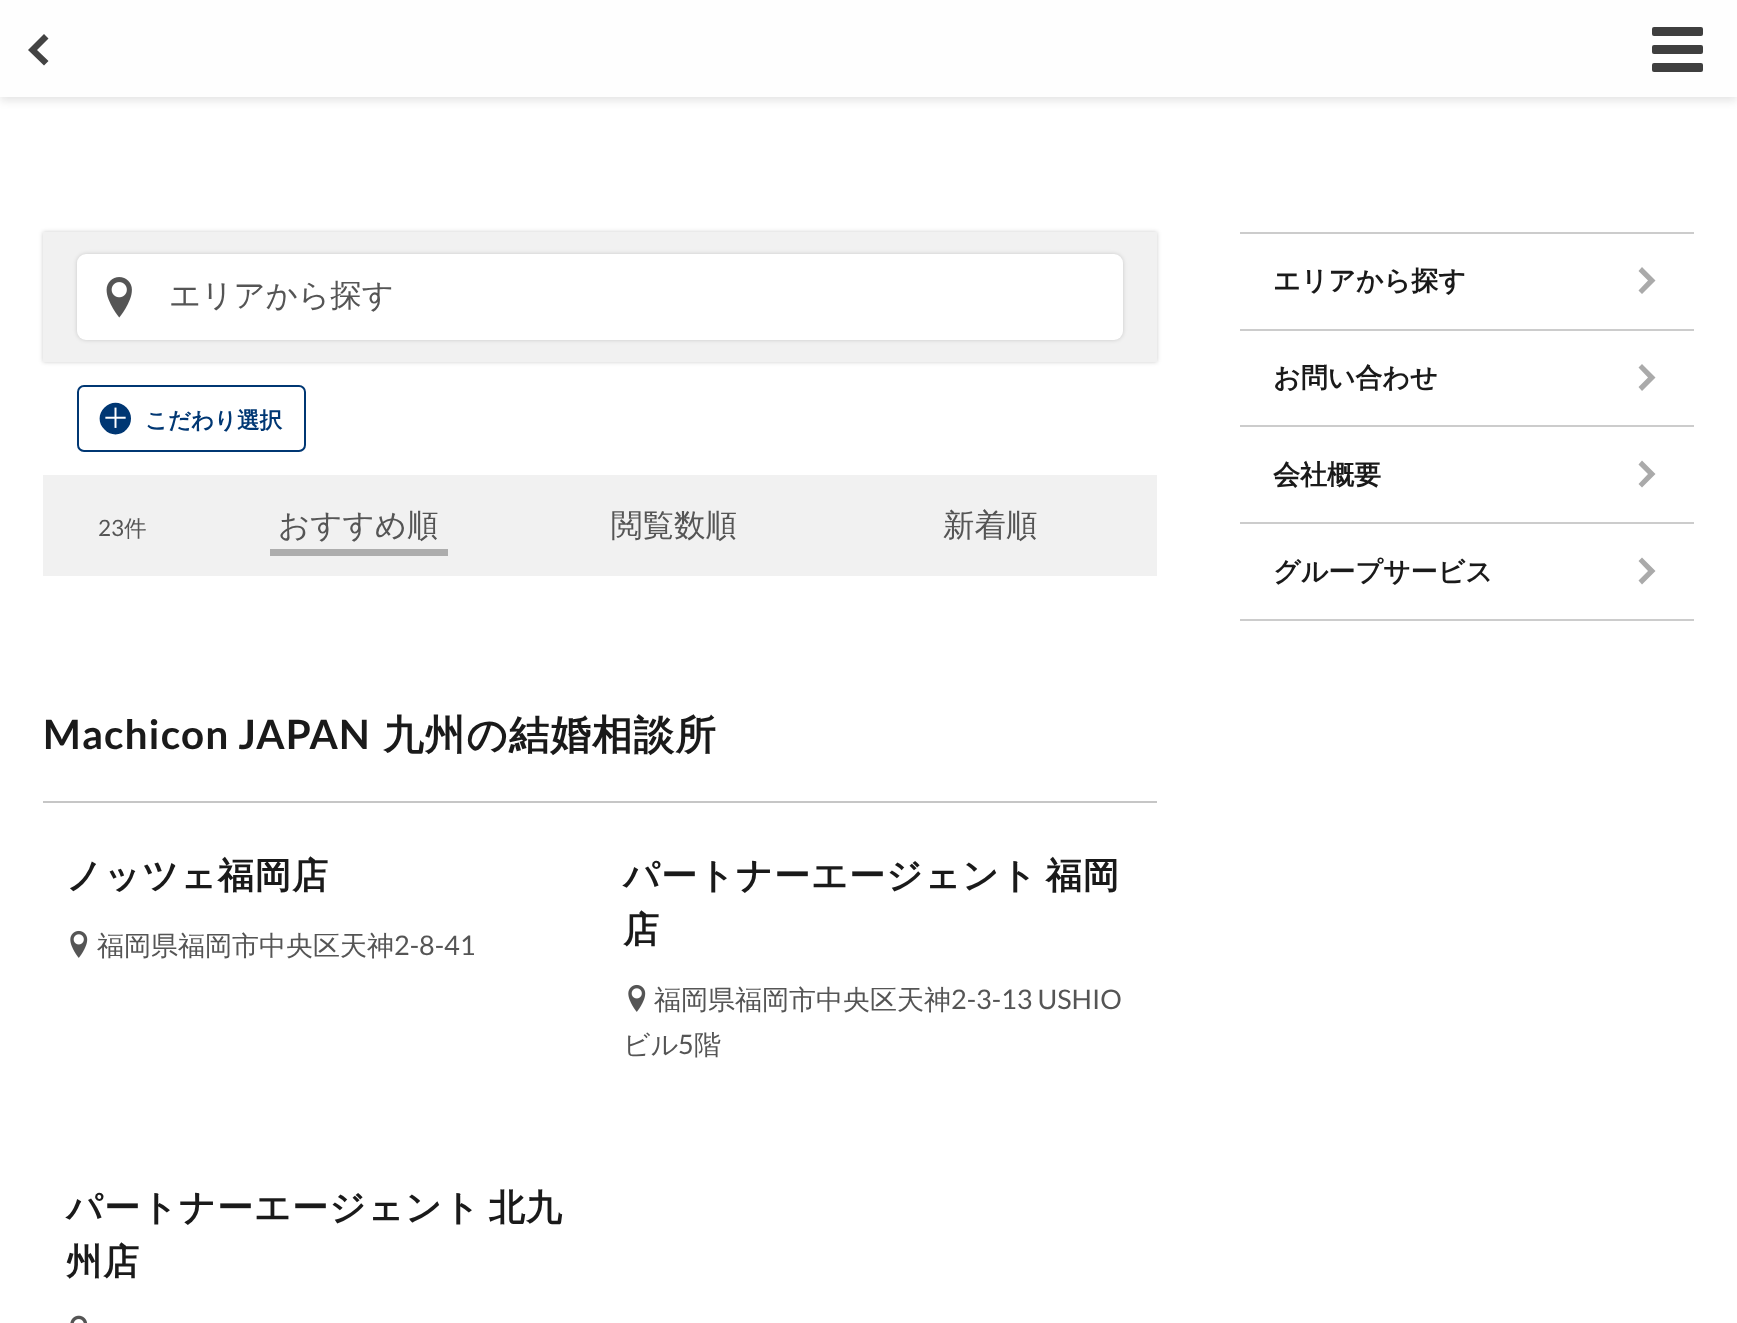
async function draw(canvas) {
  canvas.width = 1737
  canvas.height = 1323
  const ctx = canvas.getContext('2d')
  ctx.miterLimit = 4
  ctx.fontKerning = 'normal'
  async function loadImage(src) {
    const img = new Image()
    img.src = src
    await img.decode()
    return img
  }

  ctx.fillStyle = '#fff'
  ctx.fillRect(0, 0, 1737, 1323)
  ctx.fillStyle = '#0400001a'
  ctx.filter = 'blur(4.5px)'
  ctx.beginPath()
  ctx.rect(0, 5, 1737, 96)
  ctx.fill()
  ctx.filter = 'none'
  ctx.fillStyle = '#fefefe'
  ctx.fillRect(0, 0, 1737, 97)
  ctx.fillStyle = '#434343'
  ctx.beginPath()
  ctx.moveTo(44, 65.5)
  ctx.lineTo(48.5, 61)
  ctx.lineTo(37, 50)
  ctx.lineTo(48.5, 38.5)
  ctx.lineTo(44, 34)
  ctx.lineTo(28, 50)
  ctx.closePath()
  ctx.fill()
  ctx.fillStyle = '#3f3f3f'
  ctx.beginPath()
  ctx.roundRect(1652, 27, 51, 9, 2)
  ctx.fill()
  ctx.beginPath()
  ctx.roundRect(1652, 45, 51, 9, 2)
  ctx.fill()
  ctx.beginPath()
  ctx.roundRect(1652, 63, 51, 9, 2)
  ctx.fill()
  ctx.fillStyle = '#00000033'
  ctx.filter = 'blur(2px)'
  ctx.beginPath()
  ctx.rect(43, 232, 1114, 130)
  ctx.fill()
  ctx.filter = 'none'
  ctx.fillStyle = '#f1f1f1'
  ctx.fillRect(43, 232, 1114, 130)
  ctx.fillStyle = '#00000029'
  ctx.filter = 'blur(2px)'
  ctx.beginPath()
  ctx.roundRect(77, 254, 1046, 86, 9)
  ctx.fill()
  ctx.filter = 'none'
  ctx.fillStyle = '#fff'
  ctx.beginPath()
  ctx.roundRect(77, 254, 1046, 86, 9)
  ctx.fill()
  ctx.drawImage(await loadImage('image0.png'), 106, 277, 26, 41)
  ctx.font = '500 31.5px WenQuanYi Zen Hei'
  ctx.fillStyle = '#555'
  ctx.fillText('エリアから探す', 169, 306)
  ctx.beginPath()
  ctx.roundRect(78, 386, 227, 65, 6)
  ctx.strokeStyle = '#003773'
  ctx.lineWidth = 2
  ctx.stroke()
  ctx.fillStyle = '#003773'
  ctx.beginPath()
  ctx.moveTo(126.5, 407.5)
  ctx.bezierCurveTo(132.5, 413.5, 132.5, 423.5, 126.5, 429.5)
  ctx.bezierCurveTo(120.5, 436, 110.5, 436, 104.5, 429.5)
  ctx.bezierCurveTo(98, 423.5, 98, 413.5, 104.5, 407.5)
  ctx.bezierCurveTo(110.5, 401, 120.5, 401, 126.5, 407.5)
  ctx.closePath()
  ctx.fill()
  ctx.drawImage(await loadImage('image1.png'), 105, 407, 21, 21)
  ctx.font = 'bold 22.5px WenQuanYi Zen Hei'
  ctx.fillText('こだわり選択', 145, 428)
  ctx.fillStyle = '#f1f1f1'
  ctx.fillRect(43, 475, 1114, 101)
  ctx.font = '22.5px Lato'
  ctx.fillStyle = '#555'
  ctx.fillText('23', 98, 536)
  ctx.font = '500 22.5px WenQuanYi Zen Hei'
  ctx.fillText('件', 124, 536)
  ctx.font = '500 31.5px WenQuanYi Zen Hei'
  ctx.fillText('おすすめ順', 278, 536)
  ctx.fillStyle = '#adadad'
  ctx.fillRect(270, 549, 178, 7)
  ctx.fillStyle = '#555'
  ctx.fillText('閲覧数順', 611, 536)
  ctx.fillText('新着順', 943, 536)
  ctx.fillStyle = '#c6c6c6'
  ctx.fillRect(43, 801, 1114, 2)
  ctx.letterSpacing = '1.1px'
  ctx.font = 'bold 40.5px Lato'
  ctx.fillStyle = '#1a1a1a'
  ctx.fillText('Machicon JAPAN', 43, 749)
  ctx.font = 'bold 40.5px WenQuanYi Zen Hei'
  ctx.fillText('九州の結婚相談所', 383, 749)
  ctx.font = 'bold 36px WenQuanYi Zen Hei'
  ctx.fillText('ノッツェ福岡店', 66, 888)
  ctx.drawImage(await loadImage('image2.png'), 70, 930, 18, 28)
  ctx.letterSpacing = '0px'
  ctx.font = '500 27px WenQuanYi Zen Hei'
  ctx.fillStyle = '#555'
  ctx.fillText('福岡県福岡市中央区天神', 97, 955)
  ctx.font = '27px Lato'
  ctx.fillText('2-8-41', 394, 955)
  ctx.letterSpacing = '1.1px'
  ctx.wordSpacing = '-4px'
  ctx.font = 'bold 36px WenQuanYi Zen Hei'
  ctx.fillStyle = '#1a1a1a'
  ctx.fillText('パートナーエージェント 福岡', 623, 888)
  ctx.wordSpacing = '0px'
  ctx.fillText('店', 623, 942)
  ctx.drawImage(await loadImage('image2.png'), 628, 984, 18, 28)
  ctx.letterSpacing = '0px'
  ctx.font = '500 27px WenQuanYi Zen Hei'
  ctx.fillStyle = '#555'
  ctx.fillText('福岡県福岡市中央区天神', 654, 1009)
  ctx.font = '27px Lato'
  ctx.fillText('2-3-13 USHIO', 951, 1009)
  ctx.font = '500 27px WenQuanYi Zen Hei'
  ctx.fillText('ビル', 623, 1054)
  ctx.font = '27px Lato'
  ctx.fillText('5', 678, 1054)
  ctx.font = '500 27px WenQuanYi Zen Hei'
  ctx.fillText('階', 694, 1054)
  ctx.letterSpacing = '1.1px'
  ctx.wordSpacing = '-4px'
  ctx.font = 'bold 36px WenQuanYi Zen Hei'
  ctx.fillStyle = '#1a1a1a'
  ctx.fillText('パートナーエージェント 北九', 66, 1220)
  ctx.wordSpacing = '0px'
  ctx.fillText('州店', 66, 1274)
  ctx.drawImage(await loadImage('image3.png'), 70, 1315, 18, 8)
  ctx.fillStyle = '#ccc'
  ctx.fillRect(1240, 232, 454, 2)
  ctx.fillRect(1240, 329, 454, 2)
  ctx.letterSpacing = '0px'
  ctx.font = 'bold 27px WenQuanYi Zen Hei'
  ctx.fillStyle = '#1a1a1a'
  ctx.fillText('エリアから探す', 1273, 290)
  ctx.fillStyle = '#aaa'
  ctx.beginPath()
  ctx.moveTo(1642, 267)
  ctx.lineTo(1638.5, 271)
  ctx.lineTo(1648, 280.5)
  ctx.lineTo(1638.5, 290.5)
  ctx.lineTo(1642, 294)
  ctx.lineTo(1655.5, 280.5)
  ctx.closePath()
  ctx.fill()
  ctx.fillStyle = '#ccc'
  ctx.fillRect(1240, 425, 454, 2)
  ctx.fillStyle = '#1a1a1a'
  ctx.fillText('お問い合わせ', 1273, 387)
  ctx.fillStyle = '#aaa'
  ctx.beginPath()
  ctx.moveTo(1642, 364)
  ctx.lineTo(1638.5, 367.5)
  ctx.lineTo(1648, 377.5)
  ctx.lineTo(1638.5, 387)
  ctx.lineTo(1642, 391)
  ctx.lineTo(1655.5, 377.5)
  ctx.closePath()
  ctx.fill()
  ctx.fillStyle = '#ccc'
  ctx.fillRect(1240, 522, 454, 2)
  ctx.fillStyle = '#1a1a1a'
  ctx.fillText('会社概要', 1273, 484)
  ctx.fillStyle = '#aaa'
  ctx.beginPath()
  ctx.moveTo(1642, 460.5)
  ctx.lineTo(1638.5, 464.5)
  ctx.lineTo(1648, 474)
  ctx.lineTo(1638.5, 484)
  ctx.lineTo(1642, 487.5)
  ctx.lineTo(1655.5, 474)
  ctx.closePath()
  ctx.fill()
  ctx.fillStyle = '#ccc'
  ctx.fillRect(1240, 619, 454, 2)
  ctx.fillStyle = '#1a1a1a'
  ctx.fillText('グループサービス', 1273, 581)
  ctx.fillStyle = '#aaa'
  ctx.beginPath()
  ctx.moveTo(1642, 557.5)
  ctx.lineTo(1638.5, 561)
  ctx.lineTo(1648, 571)
  ctx.lineTo(1638.5, 580.5)
  ctx.lineTo(1642, 584.5)
  ctx.lineTo(1655.5, 571)
  ctx.closePath()
  ctx.fill()
}

draw(document.querySelector('canvas'))
